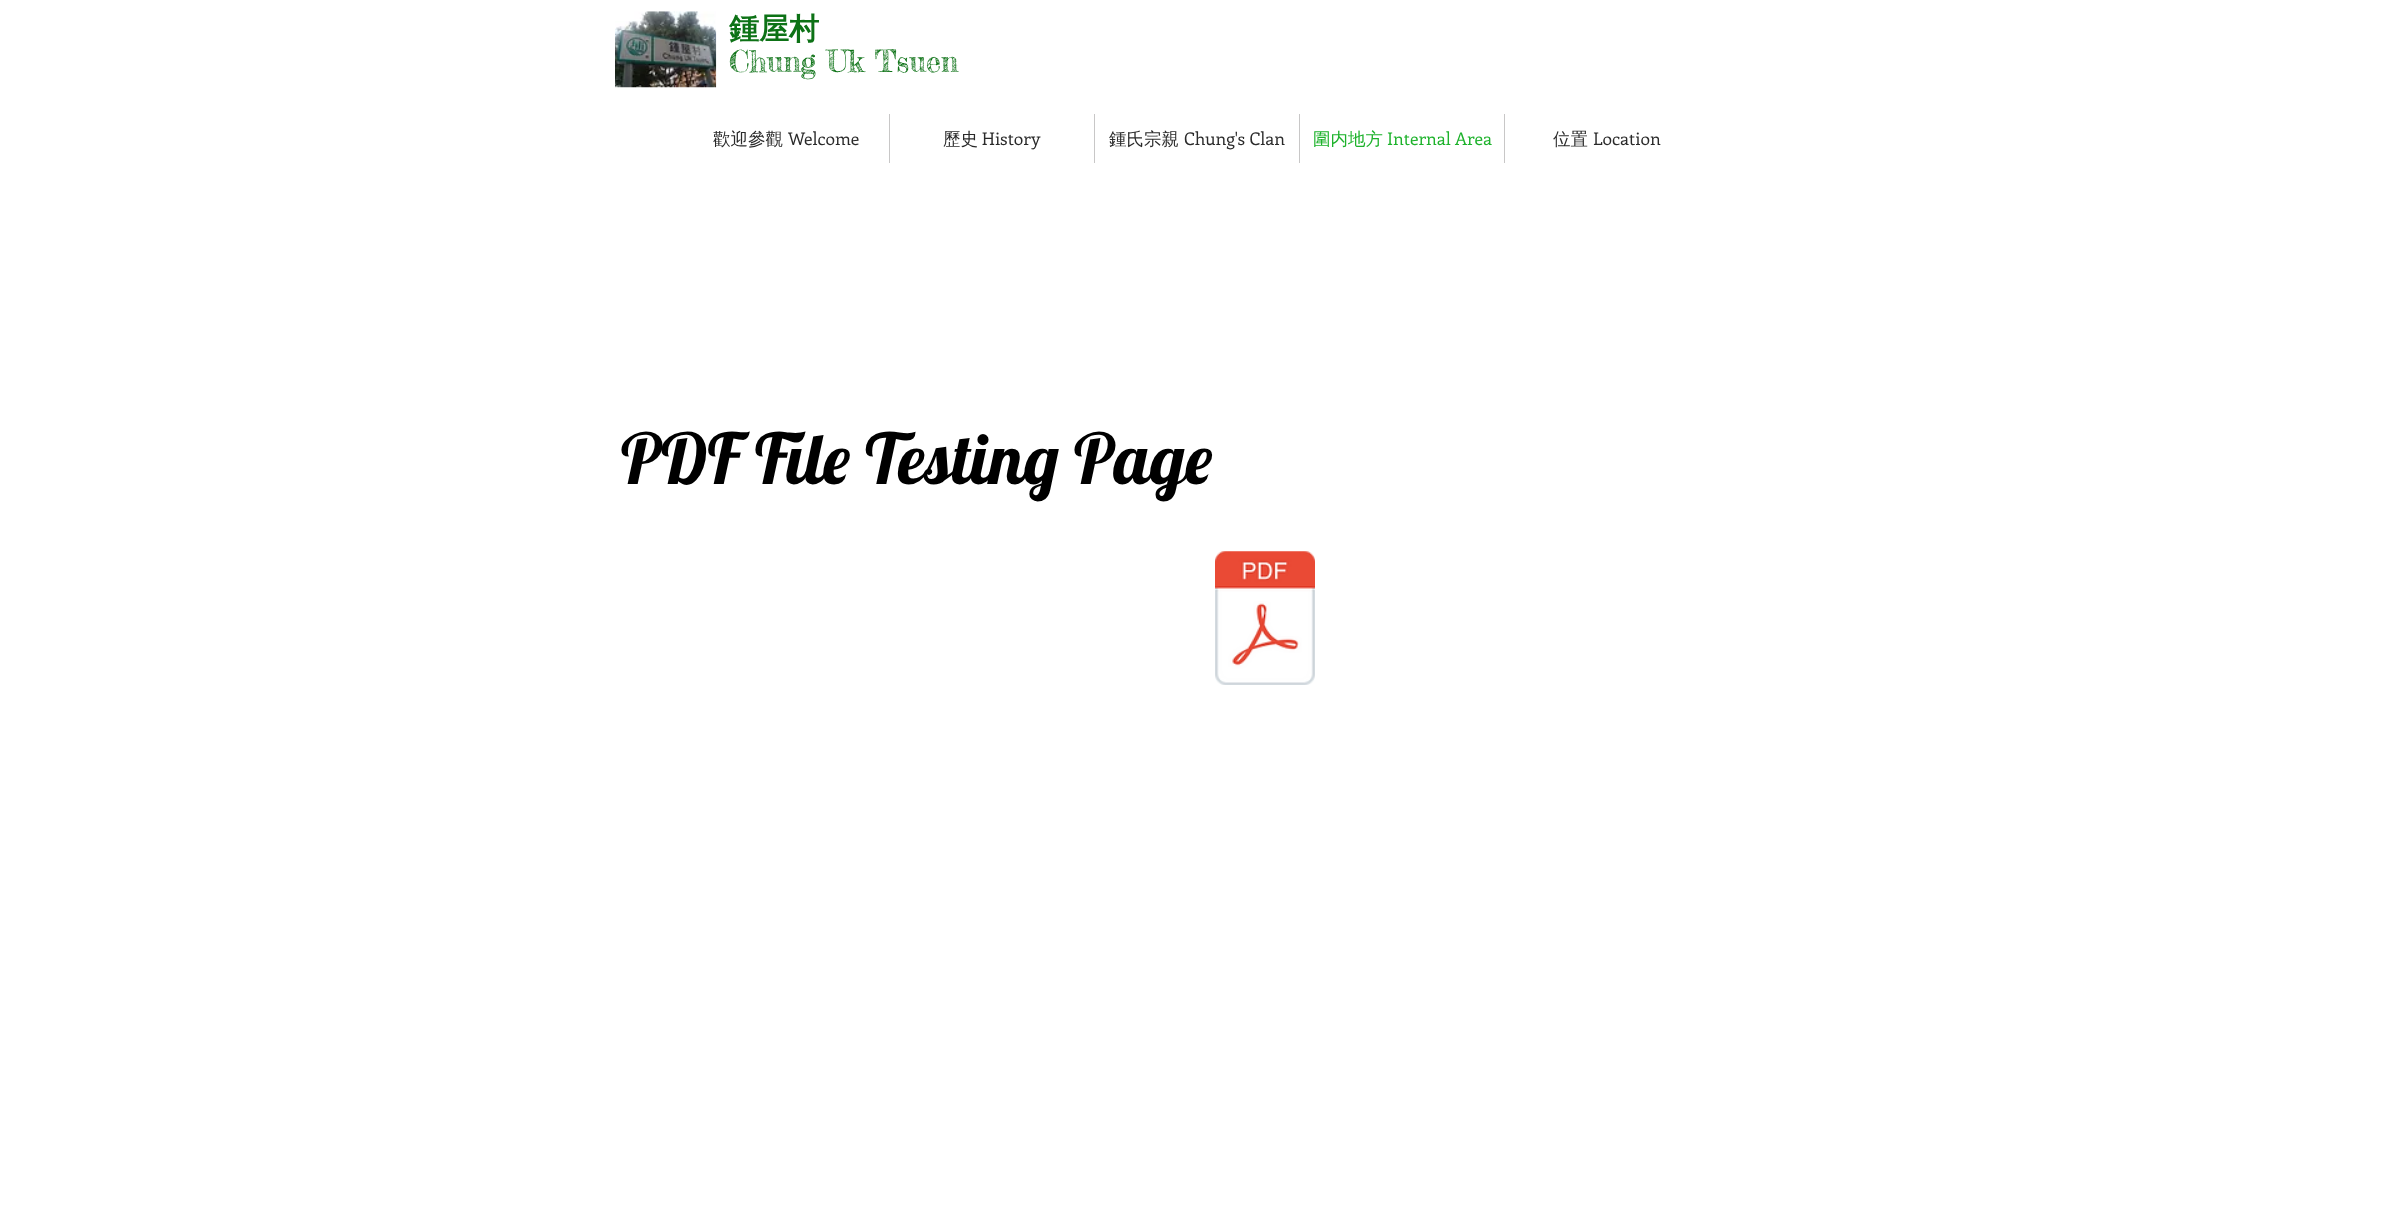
async function draw(canvas) {
  canvas.width = 2391
  canvas.height = 1209
  const ctx = canvas.getContext('2d')
  ctx.miterLimit = 4
  ctx.fontKerning = 'normal'
  async function loadImage(src) {
    const img = new Image()
    img.src = src
    await img.decode()
    return img
  }

  ctx.fillStyle = '#fff'
  ctx.fillRect(0, 0, 2391, 1209)
  ctx.drawImage(await loadImage('image0.png'), 615, 11, 102, 77)
  ctx.font = 'bold 30px WenQuanYi Zen Hei'
  ctx.fillStyle = '#0d7216'
  ctx.fillText('鍾屋村', 729, 39)
  ctx.font = '30px Fredericka the Great'
  ctx.fillText('Chung Uk Tsuen', 729, 72)
  ctx.font = '500 17.5px WenQuanYi Zen Hei'
  ctx.fillStyle = '#2a2a2a'
  ctx.fillText('歡迎參觀', 713, 145)
  ctx.font = '17.5px Enriqueta'
  ctx.fillText('Welcome', 788, 145)
  ctx.fillStyle = '#c8c7c7'
  ctx.fillRect(889, 114, 1, 49)
  ctx.font = '500 17.5px WenQuanYi Zen Hei'
  ctx.fillStyle = '#2a2a2a'
  ctx.fillText('歷史', 943, 145)
  ctx.font = '17.5px Enriqueta'
  ctx.fillText('History', 982, 145)
  ctx.fillStyle = '#c8c7c7'
  ctx.fillRect(1094, 114, 1, 49)
  ctx.font = '500 17.5px WenQuanYi Zen Hei'
  ctx.fillStyle = '#2a2a2a'
  ctx.fillText('鍾氏宗親', 1109, 145)
  ctx.font = '17.5px Enriqueta'
  ctx.fillText('Chung\'s Clan', 1184, 145)
  ctx.fillStyle = '#c8c7c7'
  ctx.fillRect(1299, 114, 1, 49)
  ctx.font = '500 17.5px WenQuanYi Zen Hei'
  ctx.fillStyle = '#1db22b'
  ctx.fillText('圍内地方', 1313, 145)
  ctx.font = '17.5px Enriqueta'
  ctx.fillText('Internal Area', 1387, 145)
  ctx.fillStyle = '#c8c7c7'
  ctx.fillRect(1504, 114, 1, 49)
  ctx.font = '500 17.5px WenQuanYi Zen Hei'
  ctx.fillStyle = '#2a2a2a'
  ctx.fillText('位置', 1553, 145)
  ctx.font = '17.5px Enriqueta'
  ctx.fillText('Location', 1593, 145)
  ctx.font = '70px Lobster'
  ctx.fillStyle = '#000'
  ctx.fillText('PDF File Testing Page', 621, 484)
  ctx.drawImage(await loadImage('image1.png'), 1215, 551, 100, 134)
}

draw(document.querySelector('canvas'))
